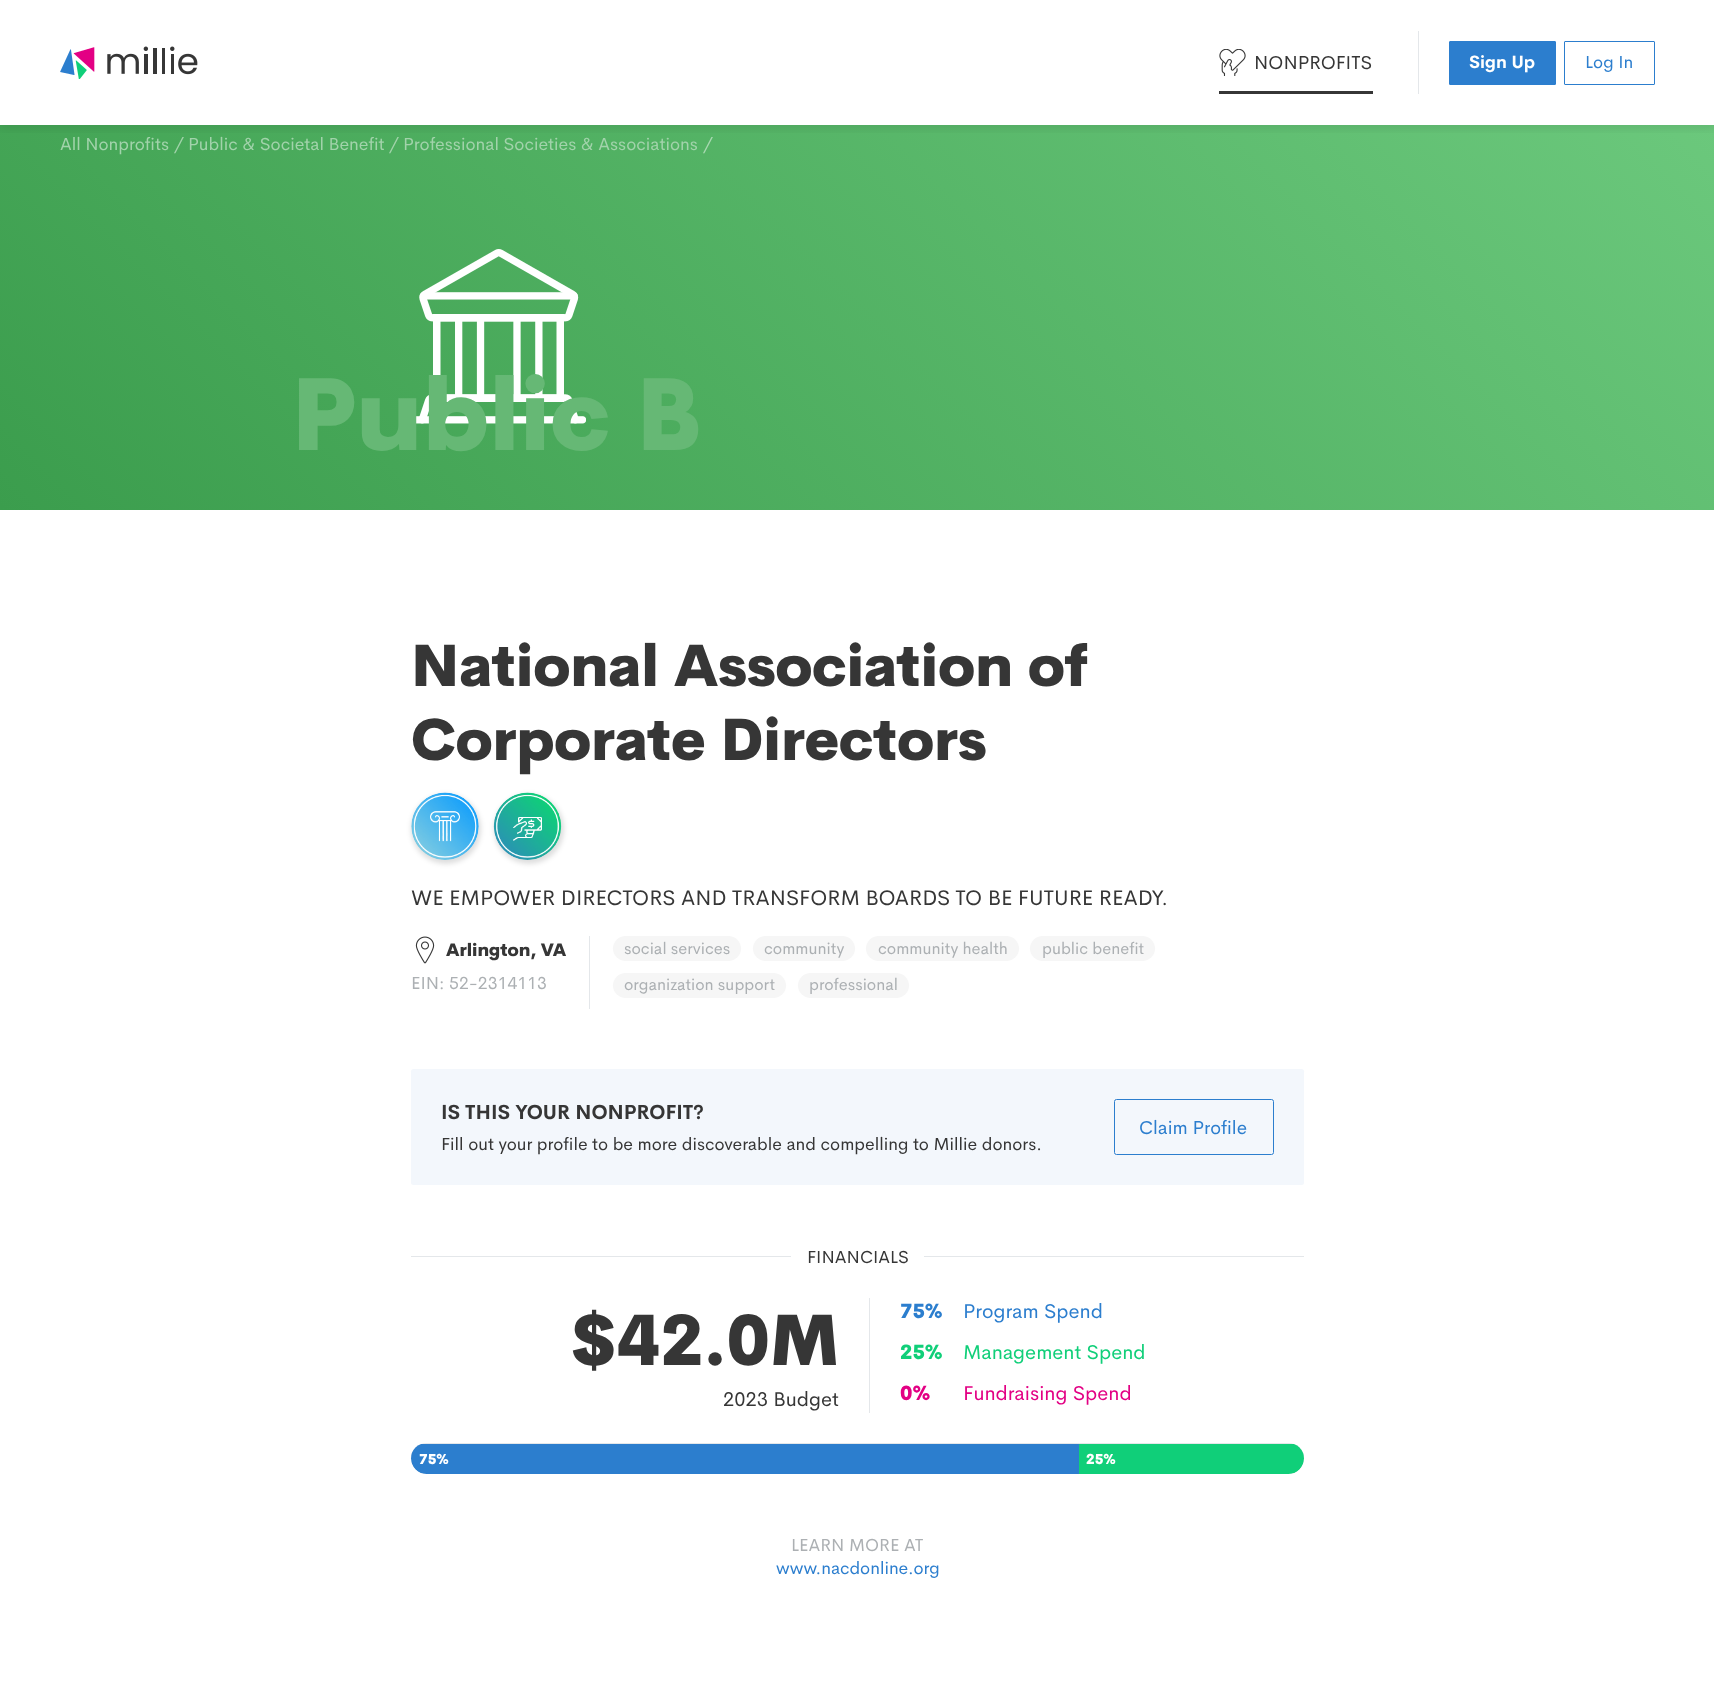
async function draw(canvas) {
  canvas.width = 1714
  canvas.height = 1693
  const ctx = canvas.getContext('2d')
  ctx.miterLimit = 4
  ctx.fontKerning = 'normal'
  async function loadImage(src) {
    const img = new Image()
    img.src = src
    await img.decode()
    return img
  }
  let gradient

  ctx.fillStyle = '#fff'
  ctx.fillRect(0, 0, 1714, 1693)
  gradient = ctx.createLinearGradient(333, 843, 1383, -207)
  gradient.addColorStop(0, '#3b9d4d')
  gradient.addColorStop(1, '#6bc87c')
  ctx.fillStyle = gradient
  ctx.fillRect(0, 125, 1714, 385)
  ctx.save()
  ctx.beginPath()
  ctx.rect(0, 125, 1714, 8)
  ctx.clip()
  ctx.fillStyle = '#00000017'
  ctx.filter = 'blur(6px)'
  ctx.beginPath()
  ctx.rect(-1, 0, 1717, 128)
  ctx.fill()
  ctx.filter = 'none'
  ctx.restore()
  ctx.drawImage(await loadImage('image0.png'), 60, 46, 138, 33)
  ctx.drawImage(await loadImage('image1.png'), 1219, 49, 27, 27)
  ctx.font = '18.75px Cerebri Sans'
  ctx.fillStyle = '#363636'
  ctx.fillText('NONPROFITS', 1254, 69)
  ctx.fillRect(1219, 91, 154, 3)
  ctx.fillStyle = '#e4e7ea'
  ctx.fillRect(1418, 31, 1, 63)
  ctx.fillStyle = '#2c7ece'
  ctx.beginPath()
  ctx.roundRect(1449.5, 41.5, 106, 43, 0.5)
  ctx.fill()
  ctx.strokeStyle = '#2c7ece'
  ctx.stroke()
  ctx.font = 'bold 17.5px Cerebri Sans'
  ctx.fillStyle = '#fff'
  ctx.fillText('Sign Up', 1469, 68)
  ctx.beginPath()
  ctx.roundRect(1564.5, 41.5, 90, 43, 0.5)
  ctx.stroke()
  ctx.font = '17.5px Cerebri Sans'
  ctx.fillStyle = '#2c7ece'
  ctx.fillText('Log In', 1585, 68)
  ctx.fillStyle = '#a2d3ab'
  ctx.fillText('All Nonprofits', 60, 150)
  ctx.fillText('/', 174, 150)
  ctx.fillText('Public & Societal Benefit', 188, 150)
  ctx.fillText('/', 389, 150)
  ctx.fillText('Professional Societies & Associations', 403, 150)
  ctx.fillStyle = '#a9d9b2'
  ctx.fillText('/', 703, 150)
  ctx.drawImage(await loadImage('image2.png'), 411, 249, 175, 175)
  ctx.font = '900 100px Cerebri Sans'
  ctx.fillStyle = '#66b875'
  ctx.fillText('Public B', 291, 450)
  ctx.font = '900 57.5px Cerebri Sans'
  ctx.fillStyle = '#363636'
  ctx.fillText('National Association of', 411, 686)
  ctx.fillText('Corporate Directors', 411, 760)
  ctx.fillStyle = '#00000021'
  ctx.filter = 'blur(2.5px)'
  ctx.beginPath()
  ctx.roundRect(411, 794, 70, 70, 35)
  ctx.fill()
  ctx.filter = 'none'
  ctx.drawImage(await loadImage('image3.png'), 411, 792, 68, 68)
  ctx.filter = 'blur(2.5px)'
  ctx.beginPath()
  ctx.roundRect(494, 794, 70, 70, 35)
  ctx.fill()
  ctx.filter = 'none'
  ctx.drawImage(await loadImage('image4.png'), 493, 792, 69, 68)
  ctx.font = '21.25px Cerebri Sans'
  ctx.fillStyle = '#363636'
  ctx.fillText('WE EMPOWER DIRECTORS AND TRANSFORM BOARDS TO BE FUTURE READY.', 411, 905)
  ctx.drawImage(await loadImage('image5.png'), 415, 936, 20, 28)
  ctx.font = '900 17.5px Cerebri Sans'
  ctx.fillText('Arlington, VA', 446, 956)
  ctx.font = '17.5px Cerebri Sans'
  ctx.fillStyle = '#acb0b3'
  ctx.fillText('EIN: 52-2314113', 411, 989)
  ctx.fillStyle = '#e4e7ea'
  ctx.fillRect(589, 936, 1, 73)
  ctx.fillStyle = '#f6f6f6'
  ctx.beginPath()
  ctx.roundRect(613, 936, 128, 25, 12.5)
  ctx.fill()
  ctx.font = '16.25px Cerebri Sans'
  ctx.fillStyle = '#acb0b3'
  ctx.fillText('social services', 624, 954)
  ctx.fillStyle = '#f6f6f6'
  ctx.beginPath()
  ctx.roundRect(753, 936, 102, 25, 12.5)
  ctx.fill()
  ctx.fillStyle = '#acb0b3'
  ctx.fillText('community', 764, 954)
  ctx.fillStyle = '#f6f6f6'
  ctx.beginPath()
  ctx.roundRect(866, 936, 153, 25, 12.5)
  ctx.fill()
  ctx.fillStyle = '#acb0b3'
  ctx.fillText('community health', 878, 954)
  ctx.fillStyle = '#f6f6f6'
  ctx.beginPath()
  ctx.roundRect(1030, 936, 125, 25, 12.5)
  ctx.fill()
  ctx.fillStyle = '#acb0b3'
  ctx.fillText('public benefit', 1042, 954)
  ctx.fillStyle = '#f6f6f6'
  ctx.beginPath()
  ctx.roundRect(613, 973, 173, 25, 12.5)
  ctx.fill()
  ctx.fillStyle = '#acb0b3'
  ctx.fillText('organization support', 624, 990)
  ctx.fillStyle = '#f6f6f6'
  ctx.beginPath()
  ctx.roundRect(798, 973, 111, 25, 12.5)
  ctx.fill()
  ctx.fillStyle = '#acb0b3'
  ctx.fillText('professional', 809, 990)
  ctx.fillStyle = '#f3f7fc'
  ctx.beginPath()
  ctx.roundRect(411, 1069, 893, 116, 2.5)
  ctx.fill()
  ctx.font = 'bold 20px Cerebri Sans'
  ctx.fillStyle = '#363636'
  ctx.fillText('IS THIS YOUR NONPROFIT?', 441, 1119)
  ctx.font = '17.5px Cerebri Sans'
  ctx.fillText('Fill out your profile to be more discoverable and compelling to Millie donors.', 441, 1150)
  ctx.beginPath()
  ctx.roundRect(1114.5, 1099.5, 159, 55, 2)
  ctx.stroke()
  ctx.font = '18.75px Cerebri Sans'
  ctx.fillStyle = '#2c7ece'
  ctx.fillText('Claim Profile', 1139, 1134)
  ctx.fillStyle = '#e4e7ea'
  ctx.fillRect(411, 1256, 893, 1)
  ctx.fillStyle = '#fff'
  ctx.fillRect(791, 1256, 133, 1)
  ctx.font = '17.5px Cerebri Sans'
  ctx.fillStyle = '#363636'
  ctx.fillText('FINANCIALS', 807, 1263)
  ctx.font = '900 70px Cerebri Sans'
  ctx.fillText('$42.0M', 570, 1365)
  ctx.font = '20px Cerebri Sans'
  ctx.fillText('2023 Budget', 723, 1406)
  ctx.fillStyle = '#e4e7ea'
  ctx.fillRect(869, 1298, 1, 115)
  ctx.font = '900 20px Cerebri Sans'
  ctx.fillStyle = '#2c7ece'
  ctx.fillText('75%', 900, 1318)
  ctx.font = '20px Cerebri Sans'
  ctx.fillText('Program Spend', 963, 1318)
  ctx.font = '900 20px Cerebri Sans'
  ctx.fillStyle = '#10cf79'
  ctx.fillText('25%', 900, 1359)
  ctx.font = '20px Cerebri Sans'
  ctx.fillText('Management Spend', 963, 1359)
  ctx.font = '900 20px Cerebri Sans'
  ctx.fillStyle = '#e30084'
  ctx.fillText('0%', 900, 1400)
  ctx.font = '20px Cerebri Sans'
  ctx.fillText('Fundraising Spend', 963, 1400)
  ctx.fillStyle = '#e4e7ea'
  ctx.beginPath()
  ctx.roundRect(411, 1443, 893, 31, 15.5)
  ctx.fill()
  ctx.save()
  ctx.beginPath()
  ctx.roundRect(411, 1443, 893, 31, 15.5)
  ctx.clip()
  ctx.fillStyle = '#2c7ece'
  ctx.beginPath()
  ctx.roundRect(411, 1444, 668, 30, [0, 0, 0, 15.5])
  ctx.fill()
  ctx.restore()
  ctx.font = '900 14px Cerebri Sans'
  ctx.fillStyle = '#fff'
  ctx.fillText('75%', 419, 1464)
  ctx.save()
  ctx.beginPath()
  ctx.roundRect(411, 1443, 893, 31, 15.5)
  ctx.clip()
  ctx.fillStyle = '#10cf79'
  ctx.beginPath()
  ctx.roundRect(1079, 1444, 225, 30, [0, 0, 15.5, 0])
  ctx.fill()
  ctx.restore()
  ctx.fillText('25%', 1086, 1464)
  ctx.font = '17.5px Cerebri Sans'
  ctx.fillStyle = '#acb0b3'
  ctx.fillText('LEARN MORE AT', 791, 1551)
  ctx.fillStyle = '#2c7ece'
  ctx.fillText('www.nacdonline.org', 776, 1574)
}

draw(document.querySelector('canvas'))
